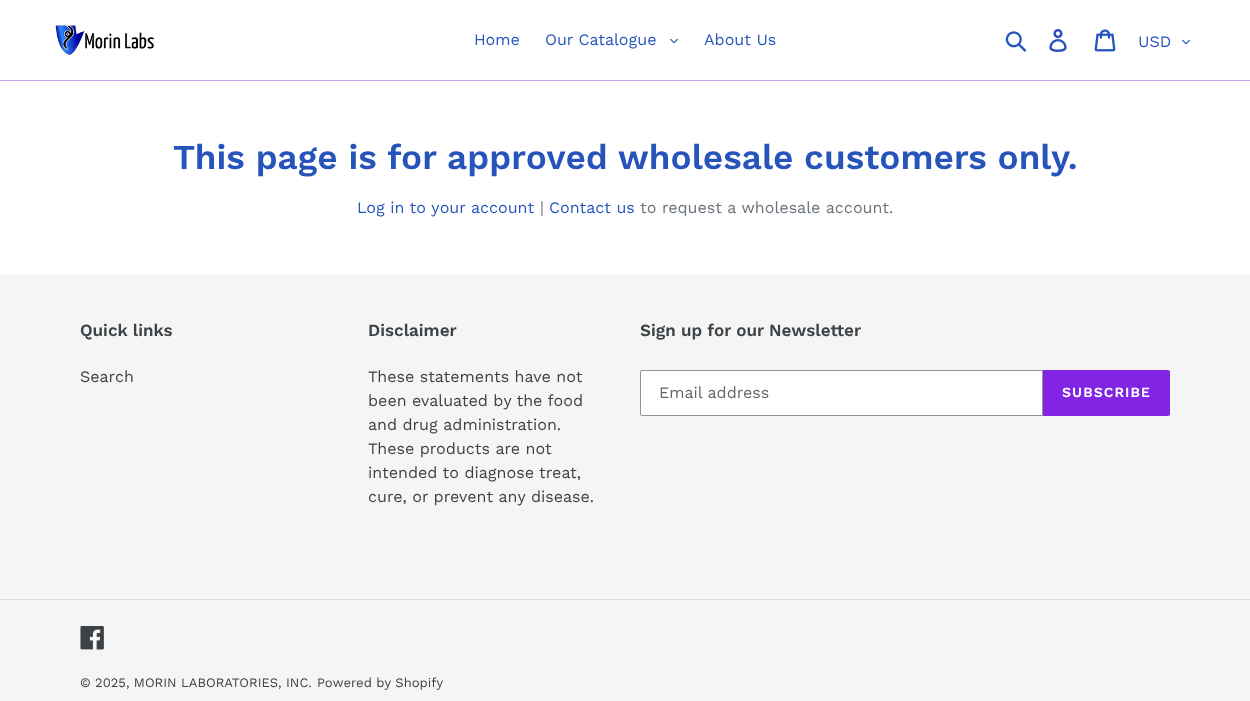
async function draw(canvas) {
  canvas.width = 1250
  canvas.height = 701
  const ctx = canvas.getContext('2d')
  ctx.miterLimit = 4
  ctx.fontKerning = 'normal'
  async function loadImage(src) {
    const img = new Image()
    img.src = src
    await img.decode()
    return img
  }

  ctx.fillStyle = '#fff'
  ctx.fillRect(0, 0, 1250, 701)
  ctx.fillStyle = '#c6a6e8'
  ctx.fillRect(0, 80, 1250, 1)
  ctx.drawImage(await loadImage('image0.png'), 55, 25, 99, 30)
  ctx.font = '16px Work Sans'
  ctx.fillStyle = '#2754bb'
  ctx.fillText('Home', 474, 45)
  ctx.fillText('Our Catalogue', 545, 45)
  ctx.drawImage(await loadImage('image1.png'), 670, 38, 8, 6)
  ctx.fillText('About Us', 704, 45)
  ctx.drawImage(await loadImage('image2.png'), 1005, 31, 22, 21)
  ctx.drawImage(await loadImage('image3.png'), 1049, 29, 18, 23)
  ctx.drawImage(await loadImage('image4.png'), 1094, 29, 22, 23)
  ctx.fillText('USD', 1138, 47)
  ctx.drawImage(await loadImage('image1.png'), 1182, 39, 8, 6)
  ctx.font = '600 35px Work Sans'
  ctx.fillText('This page is for approved wholesale customers only.', 173, 169)
  ctx.font = '16px Work Sans'
  ctx.fillText('Log in to your account', 357, 213)
  ctx.fillStyle = '#69727b'
  ctx.fillText('|', 540, 213)
  ctx.fillStyle = '#2754bb'
  ctx.fillText('Contact us', 549, 213)
  ctx.fillStyle = '#69727b'
  ctx.fillText('to request a wholesale account.', 640, 213)
  ctx.fillStyle = '#f5f5f5'
  ctx.fillRect(0, 275, 1250, 426)
  ctx.font = '600 17px Work Sans'
  ctx.fillStyle = '#3d4246'
  ctx.fillText('Quick links', 80, 336)
  ctx.font = '16px Work Sans'
  ctx.fillText('Search', 80, 382)
  ctx.font = '600 17px Work Sans'
  ctx.fillText('Disclaimer', 368, 336)
  ctx.font = '16px Work Sans'
  ctx.fillText('These statements have not', 368, 382)
  ctx.fillText('been evaluated by the food', 368, 406)
  ctx.fillText('and drug administration.', 368, 430)
  ctx.fillText('These products are not', 368, 454)
  ctx.fillText('intended to diagnose treat,', 368, 478)
  ctx.fillText('cure, or prevent any disease.', 368, 502)
  ctx.font = '600 17px Work Sans'
  ctx.fillText('Sign up for our Newsletter', 640, 336)
  ctx.fillStyle = '#fff'
  ctx.beginPath()
  ctx.roundRect(640.5, 370.5, 402, 45, [1.5, 0, 0, 1.5])
  ctx.fill()
  ctx.strokeStyle = '#949494'
  ctx.stroke()
  ctx.font = '16px Work Sans'
  ctx.fillStyle = '#666'
  ctx.fillText('Email address', 659, 398)
  ctx.fillStyle = '#8224e3'
  ctx.beginPath()
  ctx.roundRect(1043, 370, 127, 46, [0, 2, 2, 0])
  ctx.fill()
  ctx.letterSpacing = '1.1px'
  ctx.font = '600 14px Work Sans'
  ctx.fillStyle = '#fff'
  ctx.fillText('SUBSCRIBE', 1062, 397)
  ctx.fillStyle = '#dcdcdc'
  ctx.fillRect(0, 599, 1250, 1)
  ctx.drawImage(await loadImage('image5.png'), 80, 626, 24, 24)
  ctx.letterSpacing = '0px'
  ctx.font = '13px Work Sans'
  ctx.fillStyle = '#3d4246'
  ctx.fillText('© 2025, MORIN LABORATORIES, INC.', 80, 687)
  ctx.fillText('Powered by Shopify', 317, 687)
}

draw(document.querySelector('canvas'))
